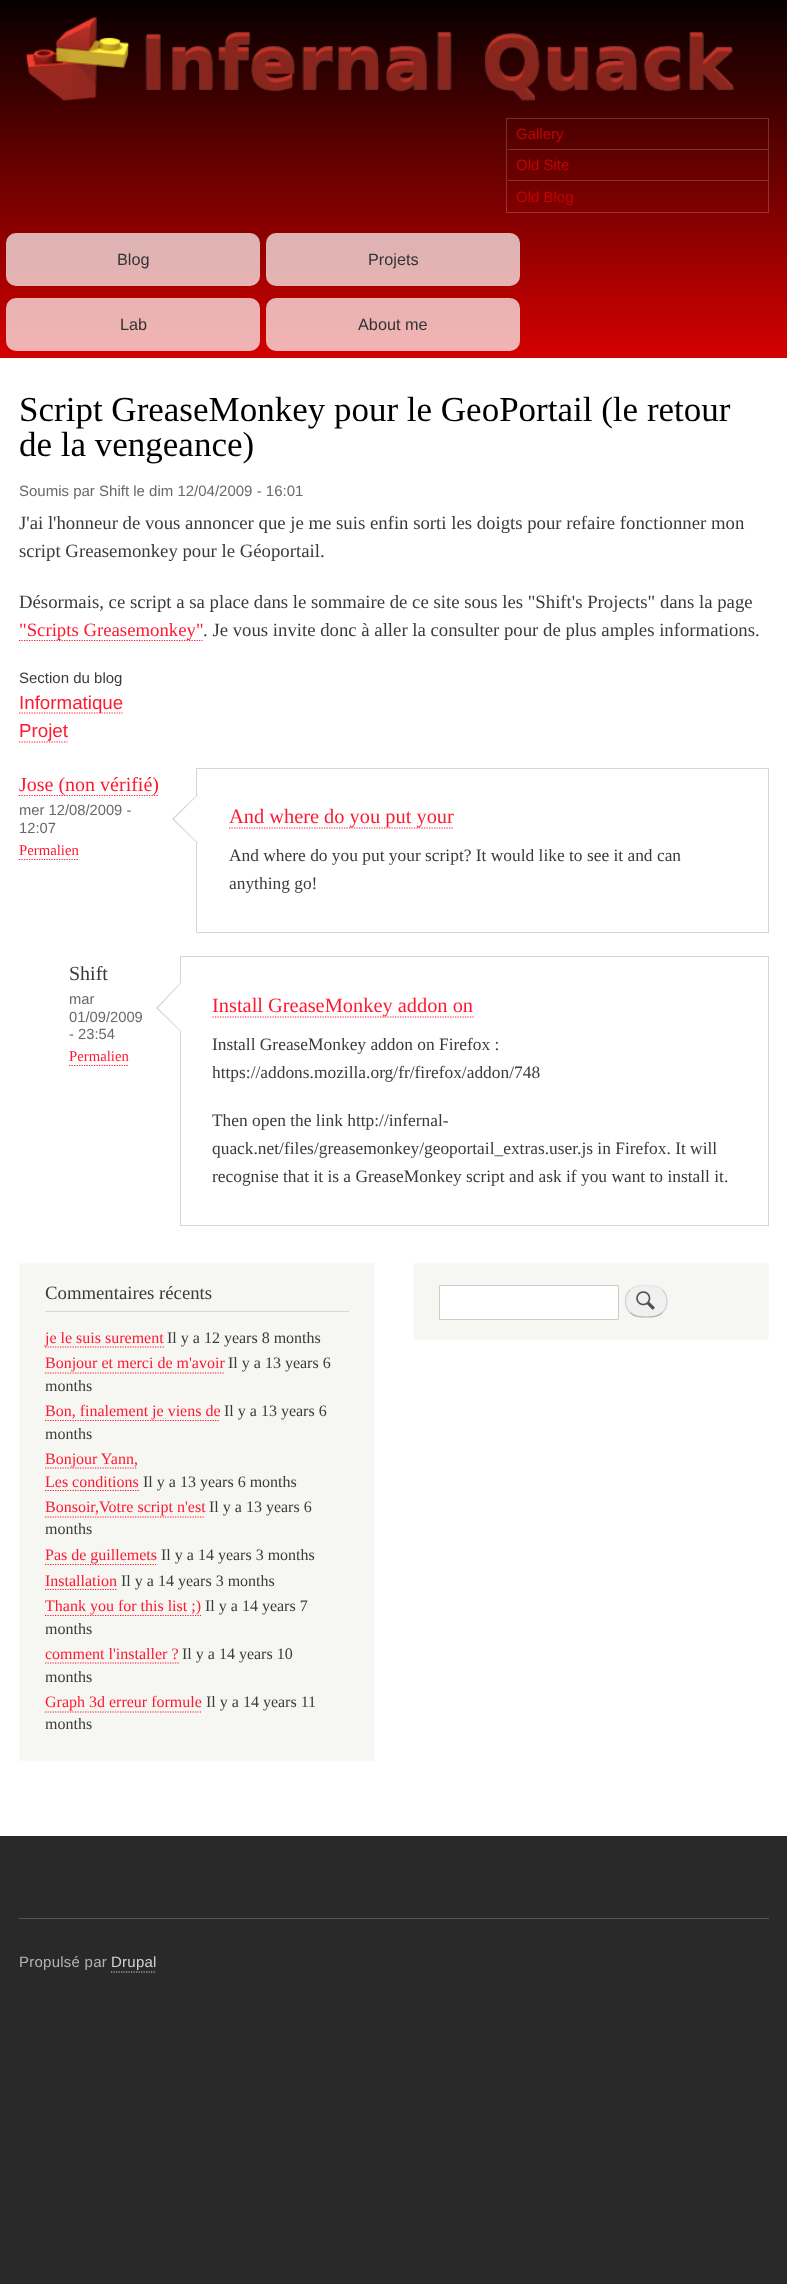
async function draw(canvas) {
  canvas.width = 787
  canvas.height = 2284
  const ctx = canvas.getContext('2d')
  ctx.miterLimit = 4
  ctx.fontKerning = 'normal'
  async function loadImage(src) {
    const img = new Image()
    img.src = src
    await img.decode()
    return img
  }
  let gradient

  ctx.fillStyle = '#292929'
  ctx.fillRect(0, 0, 787, 2284)
  ctx.fillStyle = '#fff'
  ctx.fillRect(0, 358, 787, 1478)
  gradient = ctx.createLinearGradient(394, 0, 394, 358)
  gradient.addColorStop(0, '#050000')
  gradient.addColorStop(1, '#d60000')
  ctx.fillStyle = gradient
  ctx.fillRect(0, 0, 787, 358)
  ctx.drawImage(await loadImage('image0.png'), 25, 17, 709, 84)
  ctx.strokeStyle = '#ffffff33'
  ctx.strokeRect(506.5, 118.5, 262, 94)
  ctx.fillStyle = '#7d3333'
  ctx.fillRect(508, 149, 260, 1)
  ctx.font = '15px Liberation Sans'
  ctx.fillStyle = '#c70200'
  ctx.fillText('Gallery', 516, 139)
  ctx.fillStyle = '#8b3333'
  ctx.fillRect(508, 180, 260, 1)
  ctx.fillStyle = '#c70200'
  ctx.fillText('Old Site', 516, 170)
  ctx.fillText('Old Blog', 516, 202)
  ctx.fillStyle = '#ffffffb3'
  ctx.beginPath()
  ctx.roundRect(6, 233, 254, 53, 10)
  ctx.fill()
  ctx.font = '16.25px Liberation Sans'
  ctx.fillStyle = '#333'
  ctx.fillText('Blog', 117, 265)
  ctx.fillStyle = '#ffffffb3'
  ctx.beginPath()
  ctx.roundRect(266, 233, 254, 53, 10)
  ctx.fill()
  ctx.fillStyle = '#333'
  ctx.fillText('Projets', 368, 265)
  ctx.fillStyle = '#ffffffb3'
  ctx.beginPath()
  ctx.roundRect(6, 298, 254, 53, 10)
  ctx.fill()
  ctx.fillStyle = '#333'
  ctx.fillText('Lab', 120, 330)
  ctx.fillStyle = '#ffffffb3'
  ctx.beginPath()
  ctx.roundRect(266, 298, 254, 53, 10)
  ctx.fill()
  ctx.fillStyle = '#333'
  ctx.fillText('About me', 358, 330)
  ctx.font = '35px Liberation Serif'
  ctx.fillStyle = '#000'
  ctx.fillText('Script GreaseMonkey pour le GeoPortail (le retour', 19, 421)
  ctx.fillText('de la vengeance)', 19, 456)
  ctx.font = '15px Liberation Sans'
  ctx.fillStyle = '#68696b'
  ctx.fillText('Soumis par Shift le dim 12/04/2009 - 16:01', 19, 496)
  ctx.font = '18.75px Liberation Serif'
  ctx.fillStyle = '#3b3b3b'
  ctx.fillText('J\'ai l\'honneur de vous annoncer que je me suis enfin sorti les doigts pour refaire fonctionner mon', 19, 529)
  ctx.fillText('script Greasemonkey pour le Géoportail.', 19, 557)
  ctx.fillText('Désormais, ce script a sa place dans le sommaire de ce site sous les "Shift\'s Projects" dans la page', 19, 608)
  ctx.beginPath()
  ctx.moveTo(19, 640.5)
  ctx.lineTo(202.5, 640.5)
  ctx.strokeStyle = '#ff1930'
  ctx.lineWidth = 1.2
  ctx.setLineDash([1.25, 1.25])
  ctx.stroke()
  ctx.fillStyle = '#ff1930'
  ctx.fillText('"Scripts Greasemonkey"', 19, 636)
  ctx.fillStyle = '#3b3b3b'
  ctx.fillText('. Je vous invite donc à aller la consulter pour de plus amples informations.', 203, 636)
  ctx.font = '15px Liberation Sans'
  ctx.fillText('Section du blog', 19, 683)
  ctx.beginPath()
  ctx.moveTo(19, 713)
  ctx.lineTo(122.5, 713)
  ctx.stroke()
  ctx.font = '18.75px Liberation Sans'
  ctx.fillStyle = '#ff1930'
  ctx.fillText('Informatique', 19, 709)
  ctx.fillText('Projet', 19, 737)
  ctx.beginPath()
  ctx.moveTo(19, 742)
  ctx.lineTo(67.5, 742)
  ctx.stroke()
  ctx.beginPath()
  ctx.moveTo(19, 795.5)
  ctx.lineTo(159, 795.5)
  ctx.stroke()
  ctx.font = '20px Liberation Serif'
  ctx.fillText('Jose (non vérifié)', 19, 791)
  ctx.font = '14.75px Liberation Sans'
  ctx.fillStyle = '#68696b'
  ctx.fillText('mer 12/08/2009 -', 19, 815)
  ctx.fillText('12:07', 19, 833)
  ctx.font = '14.75px Liberation Serif'
  ctx.fillStyle = '#ff1930'
  ctx.fillText('Permalien', 19, 855)
  ctx.beginPath()
  ctx.moveTo(19, 859.5)
  ctx.lineTo(79, 859.5)
  ctx.stroke()
  ctx.strokeStyle = '#d3d7d9'
  ctx.lineWidth = 1
  ctx.setLineDash([])
  ctx.strokeRect(196.5, 768.5, 572, 164)
  ctx.fillStyle = '#d3d7d9'
  ctx.beginPath()
  ctx.moveTo(198, 794)
  ctx.lineTo(198, 844)
  ctx.lineTo(172, 819)
  ctx.closePath()
  ctx.fill()
  ctx.fillStyle = '#fff'
  ctx.beginPath()
  ctx.moveTo(199, 794)
  ctx.lineTo(199, 844)
  ctx.lineTo(174, 819)
  ctx.closePath()
  ctx.fill()
  ctx.beginPath()
  ctx.moveTo(229, 828)
  ctx.lineTo(454, 828)
  ctx.strokeStyle = '#ff1930'
  ctx.lineWidth = 1.2
  ctx.setLineDash([1.25, 1.25])
  ctx.stroke()
  ctx.font = '20.4px Liberation Serif'
  ctx.fillStyle = '#ff1930'
  ctx.fillText('And where do you put your', 229, 823)
  ctx.font = '17.4px Liberation Serif'
  ctx.fillStyle = '#3b3b3b'
  ctx.fillText('And where do you put your script? It would like to see it and can', 229, 861)
  ctx.fillText('anything go!', 229, 889)
  ctx.font = '20px Liberation Serif'
  ctx.fillText('Shift', 69, 980)
  ctx.font = '14.75px Liberation Sans'
  ctx.fillStyle = '#68696b'
  ctx.fillText('mar', 69, 1004)
  ctx.fillText('01/09/2009', 69, 1022)
  ctx.fillText('- 23:54', 69, 1039)
  ctx.font = '14.75px Liberation Serif'
  ctx.fillStyle = '#ff1930'
  ctx.fillText('Permalien', 69, 1061)
  ctx.beginPath()
  ctx.moveTo(69, 1065.5)
  ctx.lineTo(129, 1065.5)
  ctx.stroke()
  ctx.strokeStyle = '#d3d7d9'
  ctx.lineWidth = 1
  ctx.setLineDash([])
  ctx.strokeRect(180.5, 956.5, 588, 269)
  ctx.fillStyle = '#d3d7d9'
  ctx.beginPath()
  ctx.moveTo(181, 982)
  ctx.lineTo(181, 1032)
  ctx.lineTo(156, 1008)
  ctx.closePath()
  ctx.fill()
  ctx.fillStyle = '#fff'
  ctx.beginPath()
  ctx.moveTo(182, 982)
  ctx.lineTo(182, 1032)
  ctx.lineTo(158, 1008)
  ctx.closePath()
  ctx.fill()
  ctx.beginPath()
  ctx.moveTo(212.5, 1017)
  ctx.lineTo(474, 1017)
  ctx.strokeStyle = '#ff1930'
  ctx.lineWidth = 1.2
  ctx.setLineDash([1.25, 1.25])
  ctx.stroke()
  ctx.font = '20.4px Liberation Serif'
  ctx.fillStyle = '#ff1930'
  ctx.fillText('Install GreaseMonkey addon on', 212, 1012)
  ctx.font = '17.4px Liberation Serif'
  ctx.fillStyle = '#3b3b3b'
  ctx.fillText('Install GreaseMonkey addon on Firefox :', 212, 1050)
  ctx.fillText('https://addons.mozilla.org/fr/firefox/addon/748', 212, 1078)
  ctx.fillText('Then open the link http://infernal-', 212, 1126)
  ctx.fillText('quack.net/files/greasemonkey/geoportail_extras.user.js in Firefox. It will', 212, 1154)
  ctx.fillText('recognise that it is a GreaseMonkey script and ask if you want to install it.', 212, 1182)
  ctx.fillStyle = '#f6f6f2'
  ctx.beginPath()
  ctx.rect(19.5, 1263.5, 355, 497)
  ctx.fill()
  ctx.strokeStyle = '#f9f9f9'
  ctx.lineWidth = 1
  ctx.setLineDash([])
  ctx.stroke()
  ctx.fillStyle = '#d6d6d6'
  ctx.fillRect(45, 1311, 304, 1)
  ctx.font = '18.75px Liberation Serif'
  ctx.fillStyle = '#3b3b3b'
  ctx.fillText('Commentaires récents', 45, 1299)
  ctx.beginPath()
  ctx.moveTo(45, 1347)
  ctx.lineTo(164, 1347)
  ctx.strokeStyle = '#ff1930'
  ctx.lineWidth = 1.2
  ctx.setLineDash([1.25, 1.25])
  ctx.stroke()
  ctx.font = '16px Liberation Serif'
  ctx.fillStyle = '#ff1930'
  ctx.fillText('je le suis surement', 45, 1343)
  ctx.fillStyle = '#3b3b3b'
  ctx.fillText('Il y a 12 years 8 months', 167, 1343)
  ctx.fillStyle = '#ff1930'
  ctx.fillText('Bonjour et merci de m\'avoir', 45, 1368)
  ctx.beginPath()
  ctx.moveTo(45, 1373)
  ctx.lineTo(225, 1373)
  ctx.stroke()
  ctx.fillStyle = '#3b3b3b'
  ctx.fillText('Il y a 13 years 6', 228, 1368)
  ctx.fillText('months', 45, 1391)
  ctx.beginPath()
  ctx.moveTo(45, 1420.5)
  ctx.lineTo(220, 1420.5)
  ctx.stroke()
  ctx.fillStyle = '#ff1930'
  ctx.fillText('Bon, finalement je viens de', 45, 1416)
  ctx.fillStyle = '#3b3b3b'
  ctx.fillText('Il y a 13 years 6', 224, 1416)
  ctx.fillText('months', 45, 1439)
  ctx.beginPath()
  ctx.moveTo(45, 1468)
  ctx.lineTo(137.5, 1468)
  ctx.stroke()
  ctx.fillStyle = '#ff1930'
  ctx.fillText('Bonjour Yann,', 45, 1464)
  ctx.fillText('Les conditions', 45, 1487)
  ctx.beginPath()
  ctx.moveTo(45, 1490.5)
  ctx.lineTo(139, 1490.5)
  ctx.stroke()
  ctx.fillStyle = '#3b3b3b'
  ctx.fillText('Il y a 13 years 6 months', 143, 1487)
  ctx.fillStyle = '#ff1930'
  ctx.fillText('Bonsoir,Votre script n\'est', 45, 1512)
  ctx.beginPath()
  ctx.moveTo(45, 1517)
  ctx.lineTo(205, 1517)
  ctx.stroke()
  ctx.fillStyle = '#3b3b3b'
  ctx.fillText('Il y a 13 years 6', 209, 1512)
  ctx.fillText('months', 45, 1534)
  ctx.beginPath()
  ctx.moveTo(45, 1564.5)
  ctx.lineTo(156, 1564.5)
  ctx.stroke()
  ctx.fillStyle = '#ff1930'
  ctx.fillText('Pas de guillemets', 45, 1560)
  ctx.fillStyle = '#3b3b3b'
  ctx.fillText('Il y a 14 years 3 months', 161, 1560)
  ctx.fillStyle = '#ff1930'
  ctx.fillText('Installation', 45, 1586)
  ctx.beginPath()
  ctx.moveTo(45, 1589.5)
  ctx.lineTo(117.5, 1589.5)
  ctx.stroke()
  ctx.fillStyle = '#3b3b3b'
  ctx.fillText('Il y a 14 years 3 months', 121, 1586)
  ctx.beginPath()
  ctx.moveTo(45, 1615.5)
  ctx.lineTo(201, 1615.5)
  ctx.stroke()
  ctx.fillStyle = '#ff1930'
  ctx.fillText('Thank you for this list ;)', 45, 1611)
  ctx.fillStyle = '#3b3b3b'
  ctx.fillText('Il y a 14 years 7', 205, 1611)
  ctx.fillText('months', 45, 1634)
  ctx.fillStyle = '#ff1930'
  ctx.fillText('comment l\'installer ?', 45, 1659)
  ctx.beginPath()
  ctx.moveTo(45, 1663)
  ctx.lineTo(179, 1663)
  ctx.stroke()
  ctx.fillStyle = '#3b3b3b'
  ctx.fillText('Il y a 14 years 10', 182, 1659)
  ctx.fillText('months', 45, 1682)
  ctx.fillStyle = '#ff1930'
  ctx.fillText('Graph 3d erreur formule', 45, 1707)
  ctx.beginPath()
  ctx.moveTo(45, 1712)
  ctx.lineTo(201, 1712)
  ctx.stroke()
  ctx.fillStyle = '#3b3b3b'
  ctx.fillText('Il y a 14 years 11', 206, 1707)
  ctx.fillText('months', 45, 1729)
  ctx.fillStyle = '#f6f6f2'
  ctx.beginPath()
  ctx.rect(413.5, 1263.5, 355, 76)
  ctx.fill()
  ctx.strokeStyle = '#f9f9f9'
  ctx.lineWidth = 1
  ctx.setLineDash([])
  ctx.stroke()
  ctx.fillStyle = '#fff'
  ctx.beginPath()
  ctx.rect(439.5, 1285.5, 179, 34)
  ctx.fill()
  ctx.strokeStyle = '#ccc'
  ctx.stroke()
  ctx.fillStyle = '#f0f0f0'
  ctx.beginPath()
  ctx.roundRect(625, 1285, 43, 33, 16.5)
  ctx.fill()
  ctx.drawImage(await loadImage('image1.png'), 636, 1291, 19, 19)
  ctx.beginPath()
  ctx.moveTo(630, 1290)
  ctx.bezierCurveTo(634.5, 1285.5, 640.5, 1285.5, 646, 1285.5)
  ctx.bezierCurveTo(652, 1285.5, 658, 1285.5, 662.5, 1290)
  ctx.strokeStyle = '#e4e4e4'
  ctx.lineWidth = 1.2
  ctx.stroke()
  ctx.beginPath()
  ctx.moveTo(662.5, 1290)
  ctx.bezierCurveTo(668.5, 1296, 668.5, 1306.5, 662.5, 1312.5)
  ctx.strokeStyle = '#d2d2d2'
  ctx.stroke()
  ctx.beginPath()
  ctx.moveTo(662.5, 1312.5)
  ctx.bezierCurveTo(658, 1317, 652, 1317, 646, 1317)
  ctx.bezierCurveTo(640.5, 1317, 634.5, 1317, 630, 1312.5)
  ctx.strokeStyle = '#b4b4b4'
  ctx.stroke()
  ctx.beginPath()
  ctx.moveTo(630, 1312.5)
  ctx.bezierCurveTo(624, 1306.5, 624, 1296, 630, 1290)
  ctx.strokeStyle = '#d2d2d2'
  ctx.stroke()
  ctx.fillStyle = '#555'
  ctx.fillRect(19, 1918, 750, 1)
  ctx.letterSpacing = '0.25px'
  ctx.font = '15px Liberation Sans'
  ctx.fillStyle = '#b4b4b4'
  ctx.fillText('Propulsé par', 19, 1967)
  ctx.fillStyle = '#d4d4d4'
  ctx.fillText('Drupal', 111, 1967)
  ctx.beginPath()
  ctx.moveTo(111, 1972)
  ctx.lineTo(156, 1972)
  ctx.strokeStyle = '#d4d4d4'
  ctx.setLineDash([1.25, 1.25])
  ctx.stroke()
}

draw(document.querySelector('canvas'))
